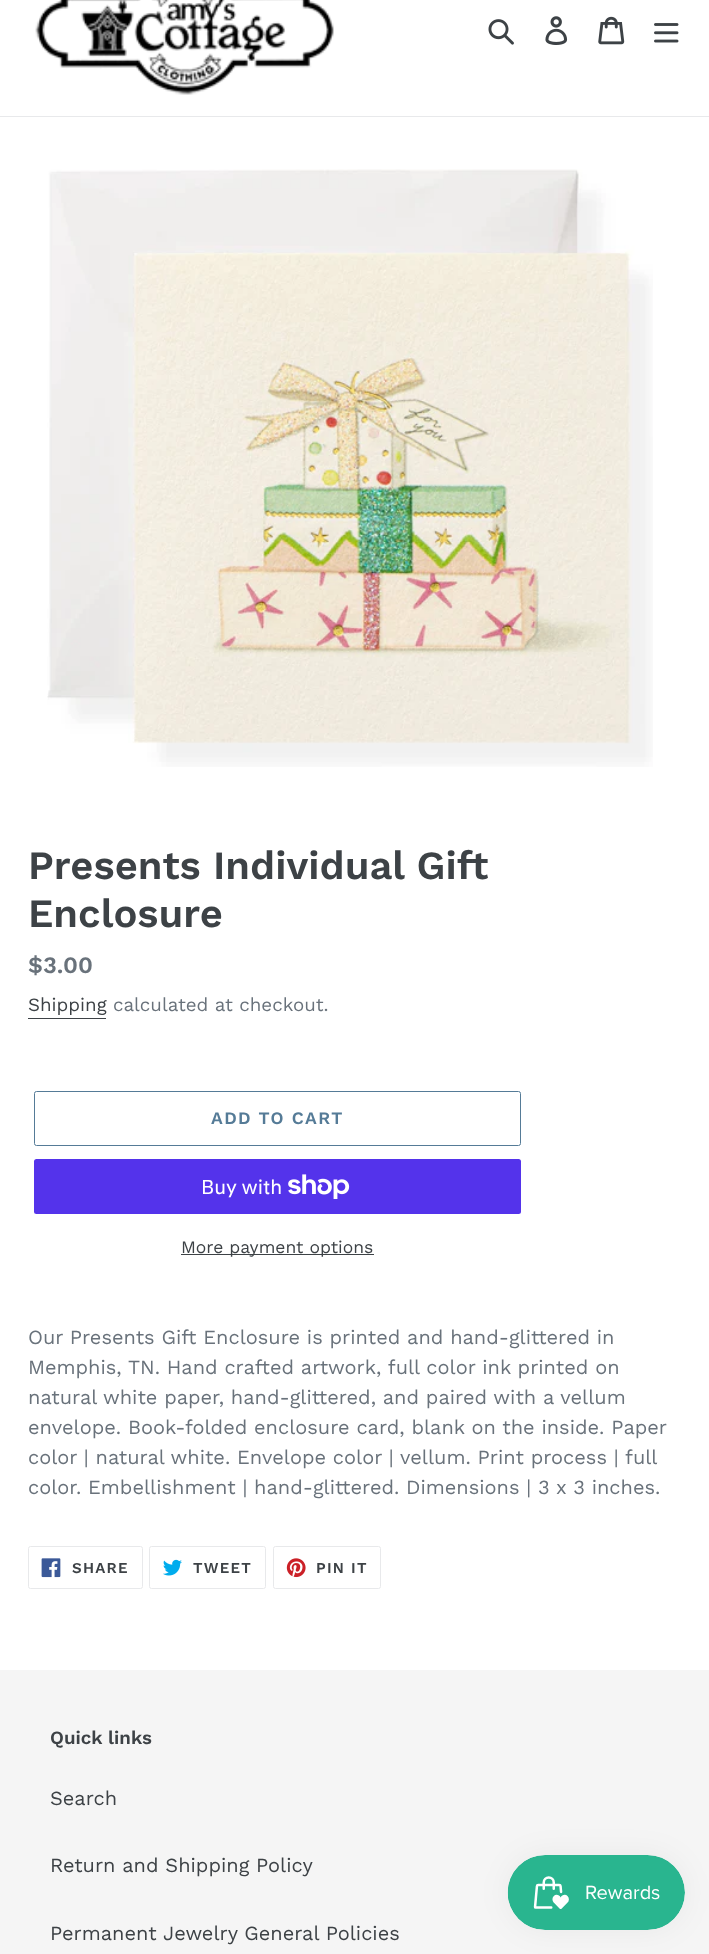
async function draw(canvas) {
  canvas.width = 709
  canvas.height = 1954
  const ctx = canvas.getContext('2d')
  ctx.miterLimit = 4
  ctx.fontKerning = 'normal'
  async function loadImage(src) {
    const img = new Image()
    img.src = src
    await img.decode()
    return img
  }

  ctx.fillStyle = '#fff'
  ctx.fillRect(0, 0, 709, 1954)
  ctx.fillStyle = '#e8e9eb'
  ctx.fillRect(0, 116, 709, 1)
  ctx.drawImage(await loadImage('image0.png'), 35, 0, 299, 95)
  ctx.drawImage(await loadImage('image1.png'), 488, 19, 26, 26)
  ctx.drawImage(await loadImage('image2.png'), 545, 16, 23, 29)
  ctx.drawImage(await loadImage('image3.png'), 598, 16, 27, 29)
  ctx.drawImage(await loadImage('image4.png'), 654, 23, 25, 20)
  ctx.drawImage(await loadImage('image5.png'), 47, 169, 606, 598)
  ctx.font = '600 40px Work Sans'
  ctx.fillStyle = '#3d4246'
  ctx.fillText('Presents Individual Gift', 28, 879)
  ctx.fillText('Enclosure', 28, 927)
  ctx.font = '600 23.5px Work Sans'
  ctx.fillStyle = '#69727b'
  ctx.fillText('$3.00', 28, 973)
  ctx.font = '18.75px Work Sans'
  ctx.fillStyle = '#3d4246'
  ctx.fillText('Shipping', 28, 1011)
  ctx.fillRect(28, 1018, 78, 1)
  ctx.fillStyle = '#69727b'
  ctx.fillText('calculated at checkout.', 113, 1011)
  ctx.beginPath()
  ctx.roundRect(34.5, 1091.5, 486, 54, 2)
  ctx.strokeStyle = '#557b97'
  ctx.stroke()
  ctx.letterSpacing = '1.4px'
  ctx.font = '600 17.5px Work Sans'
  ctx.fillStyle = '#557b97'
  ctx.fillText('ADD TO CART', 211, 1124)
  ctx.fillStyle = '#5433eb'
  ctx.beginPath()
  ctx.roundRect(34, 1159, 487, 55, 2.5)
  ctx.fill()
  ctx.letterSpacing = '0px'
  ctx.font = '20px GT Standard'
  ctx.fillStyle = '#fff'
  ctx.fillText('Buy with', 201, 1194)
  ctx.drawImage(await loadImage('image6.png'), 288, 1174, 62, 25)
  ctx.fillStyle = '#3d4246'
  ctx.fillRect(181, 1254, 193, 1)
  ctx.font = '17.5px Work Sans'
  ctx.fillText('More payment options', 181, 1253)
  ctx.font = '20px Work Sans'
  ctx.fillStyle = '#69727b'
  ctx.fillText('Our Presents Gift Enclosure is printed and hand-glittered in', 28, 1344)
  ctx.fillText('Memphis, TN. Hand crafted artwork, full color ink printed on', 28, 1374)
  ctx.fillText('natural white paper, hand-glittered, and paired with a vellum', 28, 1404)
  ctx.fillText('envelope. Book-folded enclosure card, blank on the inside. Paper', 28, 1434)
  ctx.fillText('color | natural white. Envelope color | vellum. Print process | full', 28, 1464)
  ctx.fillText('color. Embellishment | hand-glittered. Dimensions | 3 x 3 inches.', 28, 1494)
  ctx.beginPath()
  ctx.roundRect(28.5, 1546.5, 114, 42, 2)
  ctx.strokeStyle = '#e8e9eb'
  ctx.stroke()
  ctx.drawImage(await loadImage('image7.png'), 41, 1558, 20, 20)
  ctx.letterSpacing = '1.25px'
  ctx.font = '600 15px Work Sans'
  ctx.fillStyle = '#3d4246'
  ctx.fillText('SHARE', 72, 1573)
  ctx.beginPath()
  ctx.roundRect(149.5, 1546.5, 116, 42, 2)
  ctx.stroke()
  ctx.drawImage(await loadImage('image8.png'), 163, 1559, 19, 17)
  ctx.fillText('TWEET', 193, 1573)
  ctx.beginPath()
  ctx.roundRect(273.5, 1546.5, 107, 42, 2)
  ctx.stroke()
  ctx.drawImage(await loadImage('image9.png'), 286, 1558, 20, 20)
  ctx.fillText('PIN IT', 316, 1573)
  ctx.fillStyle = '#f5f5f5'
  ctx.fillRect(0, 1670, 709, 284)
  ctx.letterSpacing = '0px'
  ctx.font = '600 18.75px Work Sans'
  ctx.fillStyle = '#3d4246'
  ctx.fillText('Quick links', 50, 1744)
  ctx.font = '20px Work Sans'
  ctx.fillText('Search', 50, 1805)
  ctx.fillText('Return and Shipping Policy', 50, 1872)
  ctx.fillText('Permanent Jewelry General Policies', 50, 1940)
  ctx.fillStyle = '#0000000d'
  ctx.filter = 'blur(15.5px)'
  ctx.beginPath()
  ctx.roundRect(508, 1855, 177, 75, 37.5)
  ctx.fill()
  ctx.filter = 'none'
  ctx.drawImage(await loadImage('image10.png'), 507, 1855, 178, 75)
}

draw(document.querySelector('canvas'))
